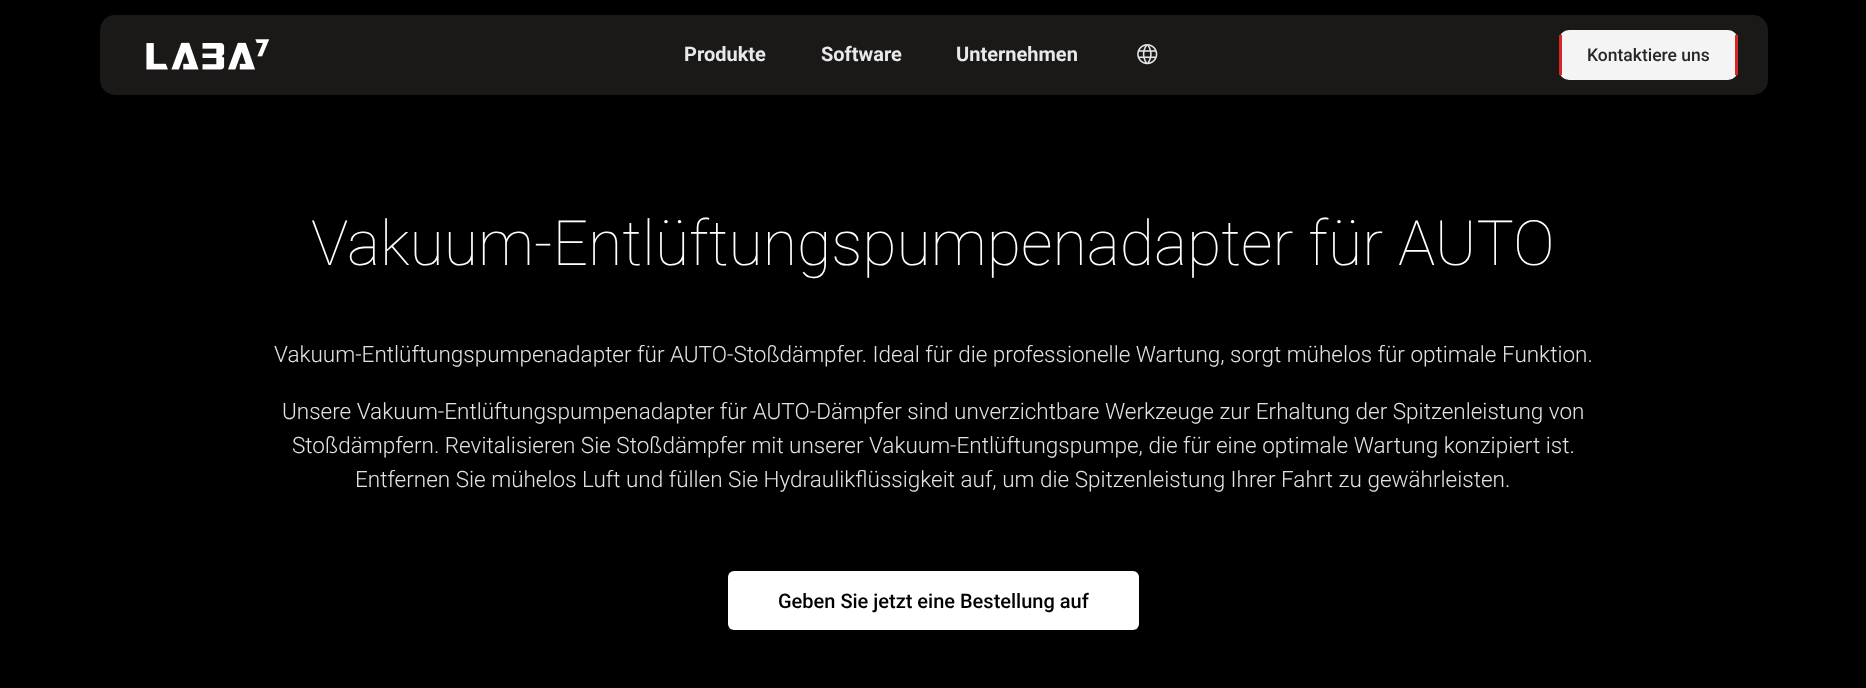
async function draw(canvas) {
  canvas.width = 1866
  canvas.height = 688
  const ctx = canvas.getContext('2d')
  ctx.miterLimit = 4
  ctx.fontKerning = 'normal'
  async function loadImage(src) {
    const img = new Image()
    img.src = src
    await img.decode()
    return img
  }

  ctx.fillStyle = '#000'
  ctx.fillRect(0, 0, 1866, 688)
  ctx.fillStyle = '#1b1818'
  ctx.beginPath()
  ctx.roundRect(100, 15, 1668, 80, 15)
  ctx.fill()
  ctx.drawImage(await loadImage('image0.png'), 146, 39, 124, 31)
  ctx.font = 'bold 20px Roboto'
  ctx.fillStyle = '#e9e9e9'
  ctx.fillText('Produkte', 684, 61)
  ctx.fillText('Software', 821, 61)
  ctx.fillText('Unternehmen', 956, 61)
  ctx.drawImage(await loadImage('image1.png'), 1137, 44, 21, 21)
  ctx.fillStyle = '#f4f4f5'
  ctx.beginPath()
  ctx.roundRect(1559, 30, 179, 50, 10)
  ctx.fill()
  ctx.fillStyle = '#d82626'
  ctx.fillRect(1735, 35, 3, 40)
  ctx.fillRect(1559, 35, 3, 40)
  ctx.font = '500 17.5px Roboto'
  ctx.fillStyle = '#27272a'
  ctx.fillText('Kontaktiere uns', 1587, 61)
  ctx.font = '100 62.5px Roboto'
  ctx.fillStyle = '#fff'
  ctx.fillText('Vakuum-Entlüftungspumpenadapter für AUTO', 311, 265)
  ctx.font = '300 22.5px Roboto'
  ctx.fillStyle = '#e2e2e2'
  ctx.fillText('Vakuum-Entlüftungspumpenadapter für AUTO-Stoßdämpfer. Ideal für die professionelle Wartung, sorgt mühelos für optimale Funktion.', 274, 362)
  ctx.fillText('Unsere Vakuum-Entlüftungspumpenadapter für AUTO-Dämpfer sind unverzichtbare Werkzeuge zur Erhaltung der Spitzenleistung von', 282, 419)
  ctx.fillText('Stoßdämpfern. Revitalisieren Sie Stoßdämpfer mit unserer Vakuum-Entlüftungspumpe, die für eine optimale Wartung konzipiert ist.', 292, 453)
  ctx.fillText('Entfernen Sie mühelos Luft und füllen Sie Hydraulikflüssigkeit auf, um die Spitzenleistung Ihrer Fahrt zu gewährleisten.', 355, 487)
  ctx.fillStyle = '#fff'
  ctx.beginPath()
  ctx.roundRect(728, 571, 411, 59, 6)
  ctx.fill()
  ctx.font = '500 20px Roboto'
  ctx.fillStyle = '#000'
  ctx.fillText('Geben Sie jetzt eine Bestellung auf', 778, 608)
}

draw(document.querySelector('canvas'))
